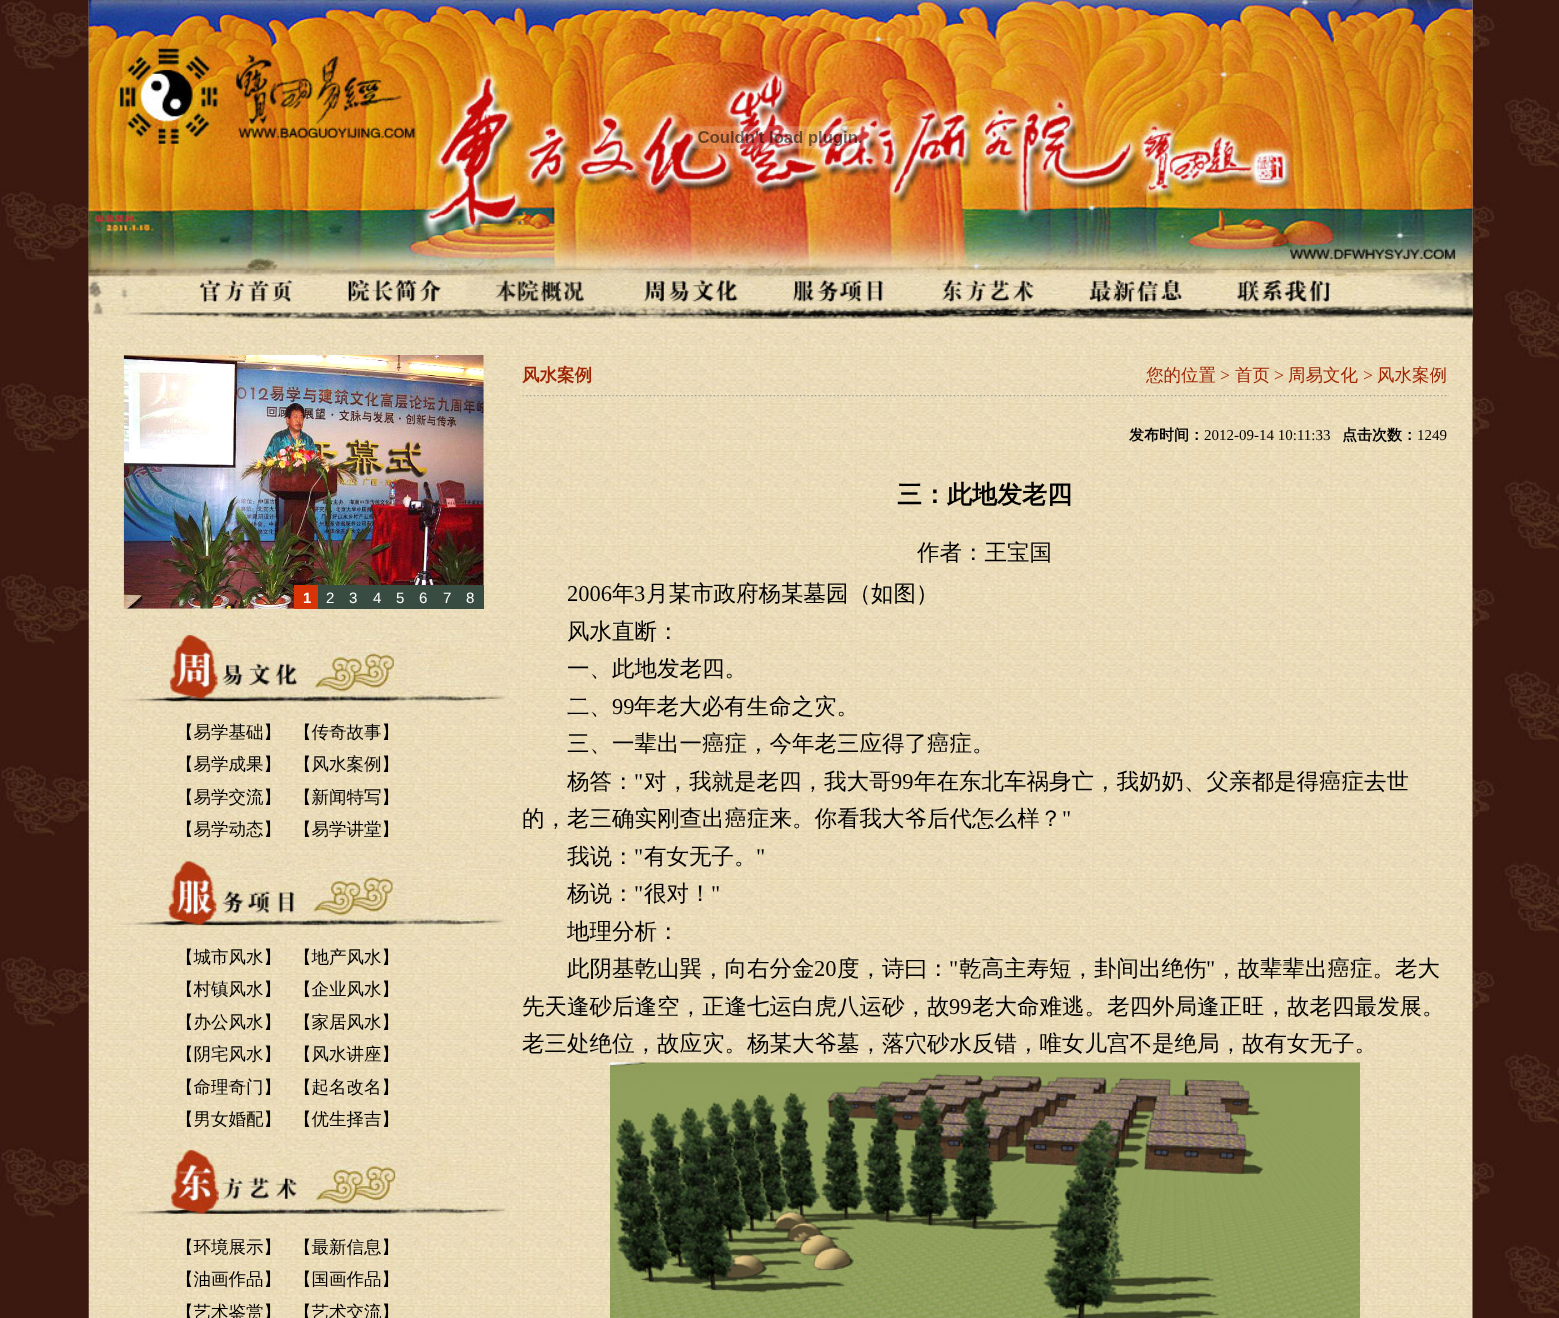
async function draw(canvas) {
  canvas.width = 1559
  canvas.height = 1318
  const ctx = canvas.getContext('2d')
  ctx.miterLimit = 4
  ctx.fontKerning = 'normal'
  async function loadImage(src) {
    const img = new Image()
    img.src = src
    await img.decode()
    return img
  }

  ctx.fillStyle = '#3a1910'
  ctx.fillRect(0, 0, 1559, 1318)
  ctx.drawImage(await loadImage('image0.png'), 0, 0, 1559, 1317)
  ctx.drawImage(await loadImage('image1.png'), 88, 0, 1385, 1318)
  ctx.drawImage(await loadImage('image2.png'), 88, 0, 1385, 272)
  ctx.drawImage(await loadImage('image3.png'), 690, 126, 180, 23)
  ctx.drawImage(await loadImage('image4.png'), 88, 271, 1385, 49)
  ctx.drawImage(await loadImage('image5.png'), 88, 271, 237, 52)
  ctx.drawImage(await loadImage('image6.png'), 325, 271, 145, 52)
  ctx.drawImage(await loadImage('image7.png'), 470, 271, 147, 52)
  ctx.drawImage(await loadImage('image8.png'), 616, 271, 154, 52)
  ctx.drawImage(await loadImage('image9.png'), 770, 271, 150, 52)
  ctx.drawImage(await loadImage('image10.png'), 920, 271, 147, 52)
  ctx.drawImage(await loadImage('image11.png'), 1066, 271, 148, 52)
  ctx.drawImage(await loadImage('image12.png'), 1213, 271, 149, 52)
  ctx.drawImage(await loadImage('image13.png'), 1361, 271, 112, 52)
  ctx.drawImage(await loadImage('image14.png'), 123, 355, 361, 254)
  ctx.fillStyle = '#d83408'
  ctx.fillRect(294, 585, 24, 24)
  ctx.font = 'bold 15px Liberation Sans'
  ctx.fillStyle = '#fff'
  ctx.fillText('1', 303, 603)
  ctx.fillStyle = '#394c42'
  ctx.fillRect(318, 585, 166, 24)
  ctx.font = '15px Liberation Sans'
  ctx.fillStyle = '#fff'
  ctx.fillText('2', 326, 603)
  ctx.fillText('3', 349, 603)
  ctx.fillText('4', 373, 603)
  ctx.fillText('5', 396, 603)
  ctx.fillText('6', 419, 603)
  ctx.fillText('7', 443, 603)
  ctx.fillText('8', 466, 603)
  ctx.drawImage(await loadImage('image15.png'), 114, 633, 391, 69)
  ctx.font = '500 17.5px WenQuanYi Zen Hei'
  ctx.fillStyle = '#000'
  ctx.fillText('【易学基础】', 176, 738)
  ctx.fillText('【传奇故事】', 294, 738)
  ctx.fillText('【易学成果】', 176, 770)
  ctx.fillText('【风水案例】', 294, 770)
  ctx.fillText('【易学交流】', 176, 803)
  ctx.fillText('【新闻特写】', 294, 803)
  ctx.fillText('【易学动态】', 176, 835)
  ctx.fillText('【易学讲堂】', 294, 835)
  ctx.drawImage(await loadImage('image16.png'), 114, 858, 391, 69)
  ctx.fillText('【城市风水】', 176, 963)
  ctx.fillText('【地产风水】', 294, 963)
  ctx.fillText('【村镇风水】', 176, 995)
  ctx.fillText('【企业风水】', 294, 995)
  ctx.fillText('【办公风水】', 176, 1028)
  ctx.fillText('【家居风水】', 294, 1028)
  ctx.fillText('【阴宅风水】', 176, 1060)
  ctx.fillText('【风水讲座】', 294, 1060)
  ctx.fillText('【命理奇门】', 176, 1093)
  ctx.fillText('【起名改名】', 294, 1093)
  ctx.fillText('【男女婚配】', 176, 1125)
  ctx.fillText('【优生择吉】', 294, 1125)
  ctx.drawImage(await loadImage('image17.png'), 114, 1148, 391, 69)
  ctx.fillText('【环境展示】', 176, 1253)
  ctx.fillText('【最新信息】', 294, 1253)
  ctx.fillText('【油画作品】', 176, 1285)
  ctx.fillText('【国画作品】', 294, 1285)
  ctx.fillText('【艺术鉴赏】', 176, 1318)
  ctx.fillText('【艺术交流】', 294, 1318)
  ctx.font = 'bold 17.5px WenQuanYi Zen Hei'
  ctx.fillStyle = '#9e2301'
  ctx.fillText('风水案例', 522, 381)
  ctx.drawImage(await loadImage('image18.png'), 522, 395, 925, 2)
  ctx.font = '500 17.5px WenQuanYi Zen Hei'
  ctx.fillText('您的位置', 1146, 381)
  ctx.font = '17.5px Liberation Serif'
  ctx.fillText('>', 1220, 381)
  ctx.font = '500 17.5px WenQuanYi Zen Hei'
  ctx.fillText('首页', 1235, 381)
  ctx.font = '17.5px Liberation Serif'
  ctx.fillText('>', 1274, 381)
  ctx.font = '500 17.5px WenQuanYi Zen Hei'
  ctx.fillText('周易文化', 1288, 381)
  ctx.font = '17.5px Liberation Serif'
  ctx.fillText('>', 1363, 381)
  ctx.font = '500 17.5px WenQuanYi Zen Hei'
  ctx.fillText('风水案例', 1377, 381)
  ctx.font = 'bold 15px WenQuanYi Zen Hei'
  ctx.fillStyle = '#000'
  ctx.fillText('发布时间：', 1129, 440)
  ctx.font = '15px Liberation Serif'
  ctx.fillText('2012-09-14 10:11:33', 1204, 440)
  ctx.font = 'bold 15px WenQuanYi Zen Hei'
  ctx.fillText('点击次数：', 1342, 440)
  ctx.font = '15px Liberation Serif'
  ctx.fillText('1249', 1417, 440)
  ctx.font = 'bold 25px WenQuanYi Zen Hei'
  ctx.fillText('三：此地发老四', 897, 503)
  ctx.font = '500 22.5px WenQuanYi Zen Hei'
  ctx.fillText('作者：王宝国', 917, 560)
  ctx.font = '22.5px Liberation Serif'
  ctx.fillText('2006', 567, 601)
  ctx.font = '500 22.5px WenQuanYi Zen Hei'
  ctx.fillText('年', 612, 601)
  ctx.font = '22.5px Liberation Serif'
  ctx.fillText('3', 634, 601)
  ctx.font = '500 22.5px WenQuanYi Zen Hei'
  ctx.fillText('月某市政府杨某墓园（如图）', 646, 601)
  ctx.fillText('风水直断：', 567, 639)
  ctx.fillText('一、此地发老四。', 567, 676)
  ctx.fillText('二、', 567, 714)
  ctx.font = '22.5px Liberation Serif'
  ctx.fillText('99', 612, 714)
  ctx.font = '500 22.5px WenQuanYi Zen Hei'
  ctx.fillText('年老大必有生命之灾。', 634, 714)
  ctx.fillText('三、一辈出一癌症，今年老三应得了癌症。', 567, 751)
  ctx.fillText('杨答：', 567, 789)
  ctx.font = '22.5px Liberation Serif'
  ctx.fillText('"', 634, 789)
  ctx.font = '500 22.5px WenQuanYi Zen Hei'
  ctx.fillText('对，我就是老四，我大哥', 644, 789)
  ctx.font = '22.5px Liberation Serif'
  ctx.fillText('99', 891, 789)
  ctx.font = '500 22.5px WenQuanYi Zen Hei'
  ctx.fillText('年在东北车祸身亡，我奶奶、父亲都是得癌症去世', 914, 789)
  ctx.fillText('的，老三确实刚查出癌症来。你看我大爷后代怎么样？', 522, 826)
  ctx.font = '22.5px Liberation Serif'
  ctx.fillText('"', 1062, 826)
  ctx.font = '500 22.5px WenQuanYi Zen Hei'
  ctx.fillText('我说：', 567, 864)
  ctx.font = '22.5px Liberation Serif'
  ctx.fillText('"', 634, 864)
  ctx.font = '500 22.5px WenQuanYi Zen Hei'
  ctx.fillText('有女无子。', 644, 864)
  ctx.font = '22.5px Liberation Serif'
  ctx.fillText('"', 756, 864)
  ctx.font = '500 22.5px WenQuanYi Zen Hei'
  ctx.fillText('杨说：', 567, 901)
  ctx.font = '22.5px Liberation Serif'
  ctx.fillText('"', 634, 901)
  ctx.font = '500 22.5px WenQuanYi Zen Hei'
  ctx.fillText('很对！', 644, 901)
  ctx.font = '22.5px Liberation Serif'
  ctx.fillText('"', 711, 901)
  ctx.font = '500 22.5px WenQuanYi Zen Hei'
  ctx.fillText('地理分析：', 567, 939)
  ctx.fillText('此阴基乾山巽，向右分金', 567, 976)
  ctx.font = '22.5px Liberation Serif'
  ctx.fillText('20', 814, 976)
  ctx.font = '500 22.5px WenQuanYi Zen Hei'
  ctx.fillText('度，诗曰：', 837, 976)
  ctx.font = '22.5px Liberation Serif'
  ctx.fillText('"', 949, 976)
  ctx.font = '500 22.5px WenQuanYi Zen Hei'
  ctx.fillText('乾高主寿短，卦间出绝伤', 959, 976)
  ctx.font = '22.5px Liberation Serif'
  ctx.fillText('"', 1206, 976)
  ctx.font = '500 22.5px WenQuanYi Zen Hei'
  ctx.fillText('，故辈辈出癌症。老大', 1215, 976)
  ctx.fillText('先天逢砂后逢空，正逢七运白虎八运砂，故', 522, 1014)
  ctx.font = '22.5px Liberation Serif'
  ctx.fillText('99', 949, 1014)
  ctx.font = '500 22.5px WenQuanYi Zen Hei'
  ctx.fillText('老大命难逃。老四外局逢正旺，故老四最发展。', 972, 1014)
  ctx.fillText('老三处绝位，故应灾。杨某大爷墓，落穴砂水反错，唯女儿宫不是绝局，故有女无子。', 522, 1051)
  ctx.drawImage(await loadImage('image19.png'), 610, 1062, 750, 256)
}

draw(document.querySelector('canvas'))
